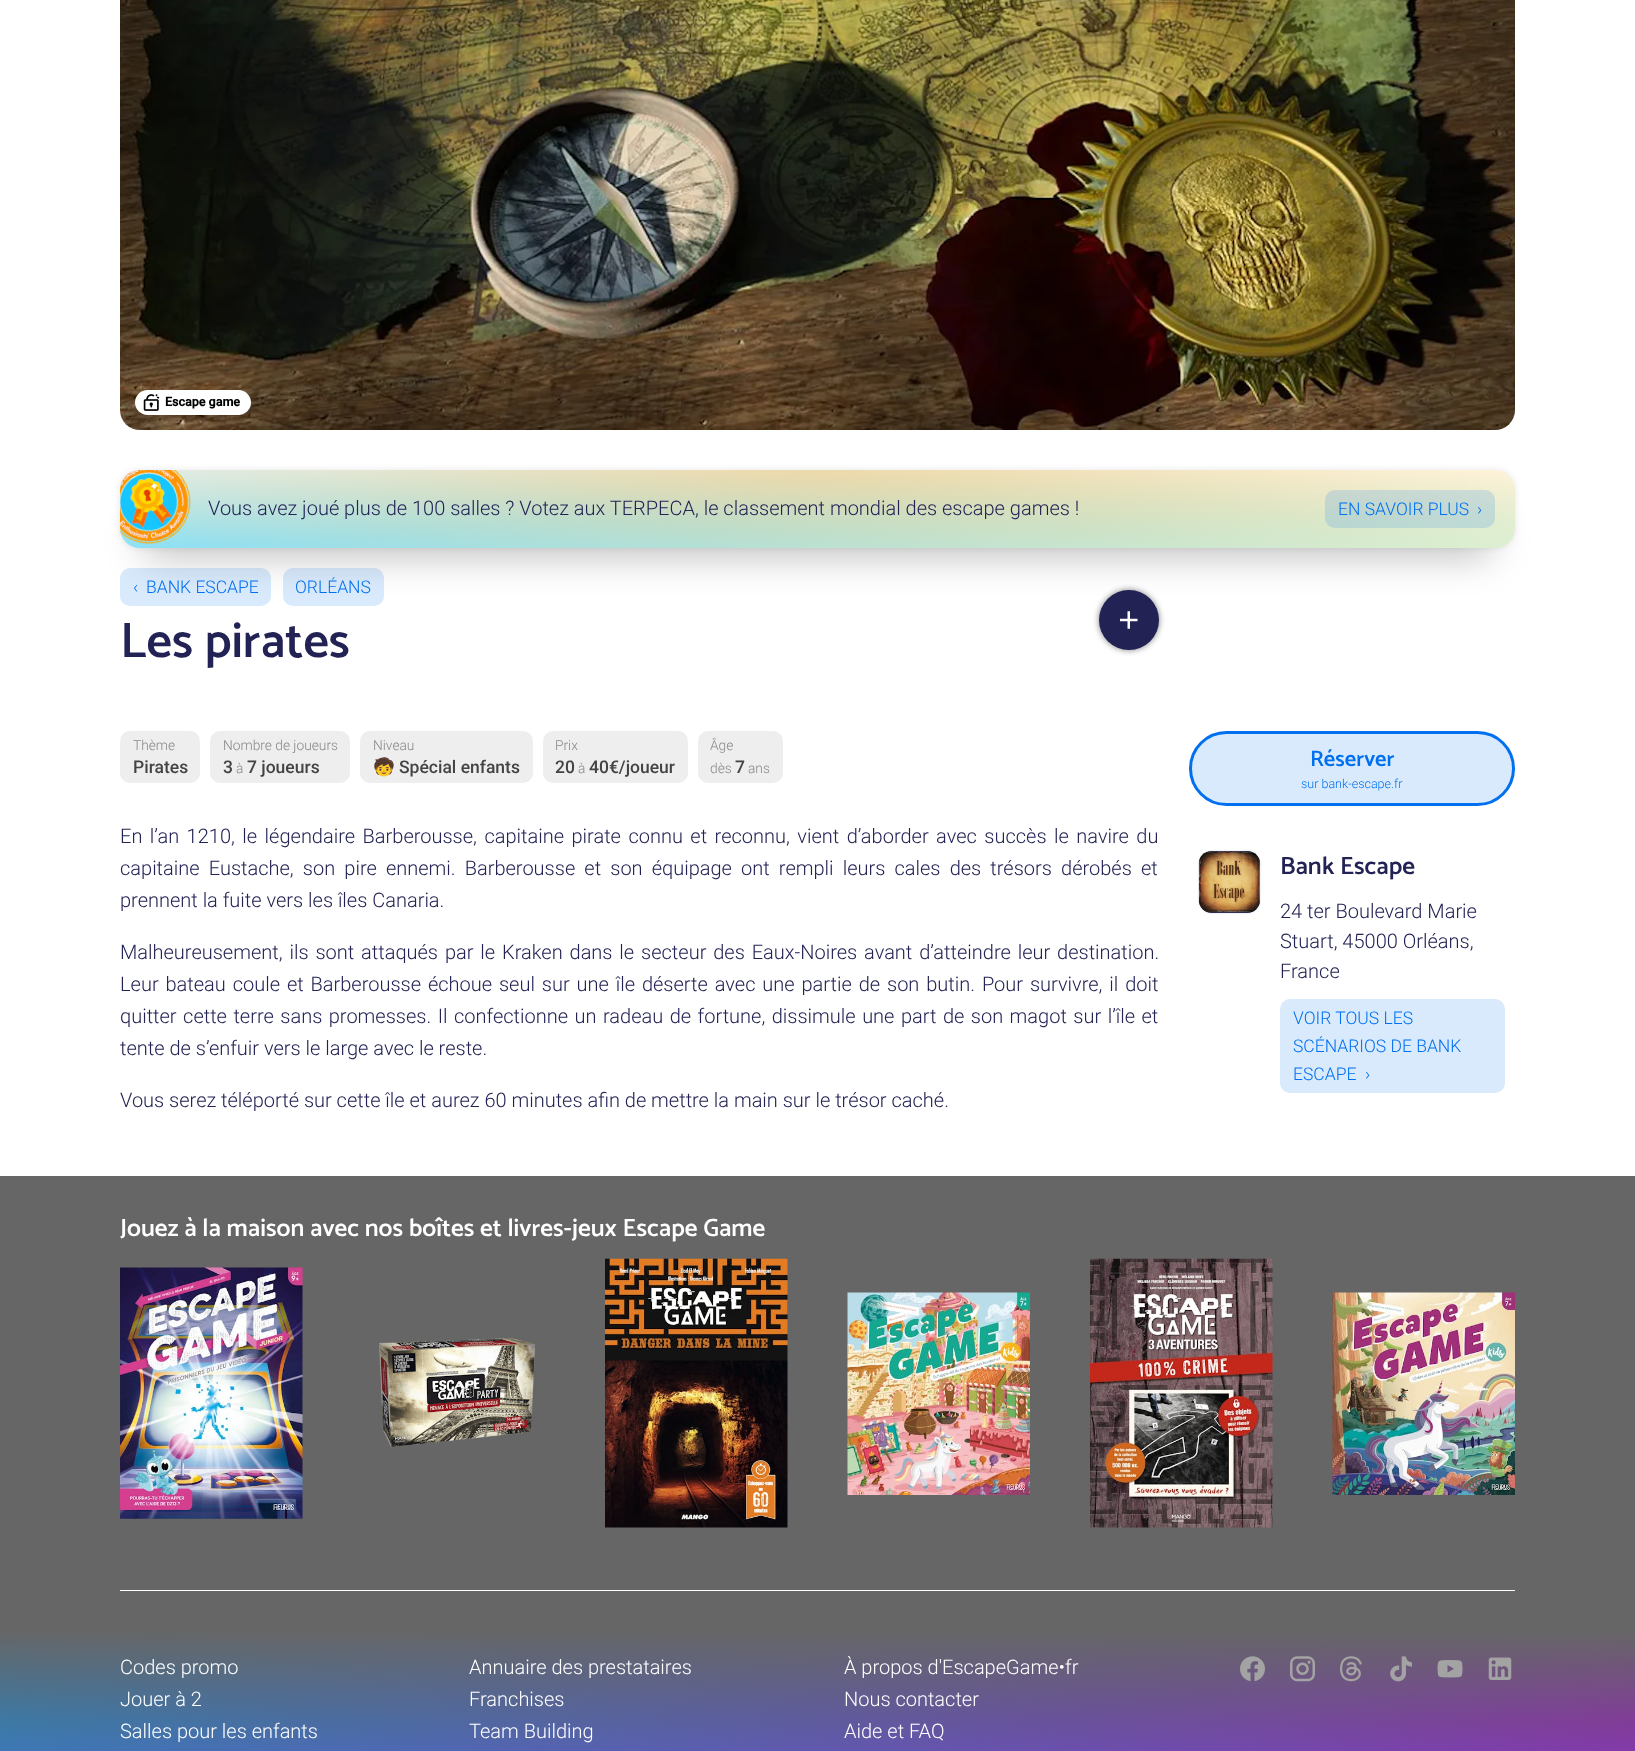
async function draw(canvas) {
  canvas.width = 1635
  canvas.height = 1751
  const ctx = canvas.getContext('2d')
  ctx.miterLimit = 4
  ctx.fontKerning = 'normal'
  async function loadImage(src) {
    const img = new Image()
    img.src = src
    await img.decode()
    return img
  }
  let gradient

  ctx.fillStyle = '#fff'
  ctx.fillRect(0, 0, 1635, 1751)
  ctx.drawImage(await loadImage('image0.png'), 120, 0, 1395, 430)
  ctx.beginPath()
  ctx.roundRect(135, 390, 116, 25, 12.5)
  ctx.fill()
  ctx.drawImage(await loadImage('image1.png'), 143, 394, 17, 17)
  ctx.font = 'bold 12.5px Roboto'
  ctx.fillStyle = '#000'
  ctx.fillText('Escape game', 165, 406)
  ctx.fillStyle = '#0000001a'
  ctx.filter = 'blur(3px)'
  ctx.beginPath()
  ctx.roundRect(120, 470, 1395, 78, 20)
  ctx.fill()
  ctx.filter = 'none'
  ctx.fillStyle = '#d9eafd'
  ctx.beginPath()
  ctx.roundRect(120, 568, 151, 38, 10)
  ctx.fill()
  ctx.beginPath()
  ctx.roundRect(283, 568, 101, 38, 10)
  ctx.fill()
  ctx.fillStyle = '#0000004d'
  ctx.filter = 'blur(19px)'
  ctx.beginPath()
  ctx.rect(145, 526, 1345, 28)
  ctx.fill()
  ctx.filter = 'none'
  gradient = ctx.createRadialGradient(1515, 9829.13, 0, 1515, 9829.13, 1973)
  gradient.addColorStop(0, '#fff7c9')
  gradient.addColorStop(1, '#fff')
  ctx.fillStyle = gradient
  ctx.beginPath()
  ctx.roundRect(120, 470, 1395, 78, 20)
  ctx.save()
  ctx.clip()
  ctx.scale(1, 110 / 1973)
  ctx.fillRect(0, 0, 1635, 31407)
  ctx.restore()
  gradient = ctx.createRadialGradient(120, 9829.13, 0, 120, 9829.13, 1973)
  gradient.addColorStop(0, '#19c5ff80')
  gradient.addColorStop(1, '#19c5ff00')
  ctx.fillStyle = gradient
  ctx.beginPath()
  ctx.roundRect(120, 470, 1395, 78, 20)
  ctx.save()
  ctx.clip()
  ctx.scale(1, 110 / 1973)
  ctx.fillRect(0, 0, 1635, 31407)
  ctx.restore()
  gradient = ctx.createRadialGradient(818, 4212.91, 0, 818, 4212.91, 986)
  gradient.addColorStop(0, '#ff95004d')
  gradient.addColorStop(1, '#ff950000')
  ctx.fillStyle = gradient
  ctx.beginPath()
  ctx.roundRect(120, 470, 1395, 78, 20)
  ctx.save()
  ctx.clip()
  ctx.scale(1, 110 / 986)
  ctx.fillRect(0, 0, 1635, 15696)
  ctx.restore()
  ctx.drawImage(await loadImage('image2.png'), 120, 470, 71, 74)
  ctx.font = '300 20px Roboto'
  ctx.fillStyle = '#225'
  ctx.fillText('Vous avez joué plus de 100 salles ? Votez aux TERPECA, le classement mondial des escape games !', 208, 515)
  ctx.fillStyle = '#0070f026'
  ctx.beginPath()
  ctx.roundRect(1325, 490, 170, 38, 10)
  ctx.fill()
  ctx.font = '300 17.5px Roboto'
  ctx.fillStyle = '#0070f0'
  ctx.fillText('EN SAVOIR PLUS', 1338, 515)
  ctx.fillText('›', 1477, 515)
  ctx.fillText('‹', 133, 593)
  ctx.fillText('BANK ESCAPE', 146, 593)
  ctx.fillText('ORLÉANS', 295, 593)
  ctx.font = '100 50px Catamaran'
  ctx.fillStyle = '#225'
  ctx.fillText('Les pirates', 120, 657)
  ctx.fillStyle = '#00000080'
  ctx.filter = 'blur(3px)'
  ctx.beginPath()
  ctx.roundRect(1099, 590, 60, 60, 30)
  ctx.fill()
  ctx.filter = 'none'
  ctx.fillStyle = '#225'
  ctx.beginPath()
  ctx.arc(1129, 620, 30, 0, 2 * Math.PI)
  ctx.fill()
  ctx.drawImage(await loadImage('image3.png'), 1120, 611, 18, 18)
  ctx.fillStyle = '#eee'
  ctx.beginPath()
  ctx.roundRect(120, 731, 80, 52, 10)
  ctx.fill()
  ctx.font = '300 13.75px Roboto'
  ctx.fillStyle = '#888'
  ctx.fillText('Thème', 133, 750)
  ctx.font = '500 17.5px Roboto'
  ctx.fillStyle = '#444'
  ctx.fillText('Pirates', 133, 773)
  ctx.fillStyle = '#eee'
  ctx.beginPath()
  ctx.roundRect(210, 731, 140, 52, 10)
  ctx.fill()
  ctx.font = '300 13.75px Roboto'
  ctx.fillStyle = '#888'
  ctx.fillText('Nombre de joueurs', 223, 750)
  ctx.font = '500 17.5px Roboto'
  ctx.fillStyle = '#444'
  ctx.fillText('3', 223, 773)
  ctx.font = '300 13.75px Roboto'
  ctx.fillStyle = '#888'
  ctx.fillText('à', 236, 773)
  ctx.font = '500 17.5px Roboto'
  ctx.fillStyle = '#444'
  ctx.fillText('7 joueurs', 247, 773)
  ctx.fillStyle = '#eee'
  ctx.beginPath()
  ctx.roundRect(360, 731, 173, 52, 10)
  ctx.fill()
  ctx.font = '300 13.75px Roboto'
  ctx.fillStyle = '#888'
  ctx.fillText('Niveau', 373, 750)
  ctx.font = '17.5px Noto Color Emoji'
  ctx.fillStyle = '#444'
  ctx.fillText('🧒', 373, 773)
  ctx.font = '500 17.5px Roboto'
  ctx.fillText('Spécial enfants', 399, 773)
  ctx.fillStyle = '#eee'
  ctx.beginPath()
  ctx.roundRect(543, 731, 145, 52, 10)
  ctx.fill()
  ctx.font = '300 13.75px Roboto'
  ctx.fillStyle = '#888'
  ctx.fillText('Prix', 555, 750)
  ctx.font = '500 17.5px Roboto'
  ctx.fillStyle = '#444'
  ctx.fillText('20', 555, 773)
  ctx.font = '300 13.75px Roboto'
  ctx.fillStyle = '#888'
  ctx.fillText('à', 578, 773)
  ctx.font = '500 17.5px Roboto'
  ctx.fillStyle = '#444'
  ctx.fillText('40€/joueur', 589, 773)
  ctx.fillStyle = '#eee'
  ctx.beginPath()
  ctx.roundRect(698, 731, 85, 52, 10)
  ctx.fill()
  ctx.font = '300 13.75px Roboto'
  ctx.fillStyle = '#888'
  ctx.fillText('Âge', 710, 750)
  ctx.fillText('dès', 710, 773)
  ctx.font = '500 17.5px Roboto'
  ctx.fillStyle = '#444'
  ctx.fillText('7', 735, 773)
  ctx.font = '300 13.75px Roboto'
  ctx.fillStyle = '#888'
  ctx.fillText('ans', 748, 773)
  ctx.wordSpacing = '2.6px'
  ctx.font = '300 20px Roboto'
  ctx.fillStyle = '#225'
  ctx.fillText('En l’an 1210, le légendaire Barberousse, capitaine pirate connu et reconnu, vient d’aborder avec succès le navire du', 120, 843)
  ctx.wordSpacing = '4.25px'
  ctx.fillText('capitaine Eustache, son pire ennemi. Barberousse et son équipage ont rempli leurs cales des trésors dérobés et', 120, 875)
  ctx.wordSpacing = '0px'
  ctx.fillText('prennent la fuite vers les îles Canaria.', 120, 907)
  ctx.wordSpacing = '2px'
  ctx.fillText('Malheureusement, ils sont attaqués par le Kraken dans le secteur des Eaux-Noires avant d’atteindre leur destination.', 120, 959)
  ctx.fillText('Leur bateau coule et Barberousse échoue seul sur une île déserte avec une partie de son butin. Pour survivre, il doit', 120, 991)
  ctx.wordSpacing = '1.6px'
  ctx.fillText('quitter cette terre sans promesses. Il confectionne un radeau de fortune, dissimule une part de son magot sur l’île et', 120, 1023)
  ctx.wordSpacing = '0px'
  ctx.fillText('tente de s’enfuir vers le large avec le reste.', 120, 1055)
  ctx.fillText('Vous serez téléporté sur cette île et aurez 60 minutes afin de mettre la main sur le trésor caché.', 120, 1107)
  ctx.fillStyle = '#d9eafd'
  ctx.beginPath()
  ctx.roundRect(1190.5, 732.5, 323, 72, 36)
  ctx.fill()
  ctx.strokeStyle = '#0070f0'
  ctx.lineWidth = 3
  ctx.stroke()
  ctx.font = '100 22.5px Catamaran'
  ctx.fillStyle = '#0070f0'
  ctx.fillText('Réserver', 1310, 766)
  ctx.font = '300 12.5px Roboto'
  ctx.fillText('sur bank-escape.fr', 1301, 788)
  ctx.fillStyle = '#00000026'
  ctx.filter = 'blur(1px)'
  ctx.beginPath()
  ctx.roundRect(1199, 851, 61, 62, 13)
  ctx.fill()
  ctx.filter = 'none'
  ctx.fillStyle = '#225'
  ctx.beginPath()
  ctx.roundRect(1199, 851, 61, 62, 13)
  ctx.fill()
  ctx.drawImage(await loadImage('image4.png'), 1198, 851, 62, 62)
  ctx.font = '100 25px Catamaran'
  ctx.fillText('Bank Escape', 1280, 874)
  ctx.font = '300 20px Roboto'
  ctx.fillText('24 ter Boulevard Marie', 1280, 918)
  ctx.fillText('Stuart, 45000 Orléans,', 1280, 948)
  ctx.fillText('France', 1280, 978)
  ctx.fillStyle = '#d9eafd'
  ctx.beginPath()
  ctx.roundRect(1280, 999, 225, 94, 10)
  ctx.fill()
  ctx.font = '300 17.5px Roboto'
  ctx.fillStyle = '#0070f0'
  ctx.fillText('VOIR TOUS LES', 1293, 1024)
  ctx.fillText('SCÉNARIOS DE BANK', 1293, 1052)
  ctx.fillText('ESCAPE', 1293, 1080)
  ctx.fillText('›', 1365, 1080)
  gradient = ctx.createLinearGradient(0, 1516, 1635, 1516)
  gradient.addColorStop(0, '#0095ff')
  gradient.addColorStop(1, '#a900e0')
  ctx.fillStyle = gradient
  ctx.fillRect(0, 1632, 1635, 119)
  gradient = ctx.createLinearGradient(818, 1176, 818, 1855)
  gradient.addColorStop(0, '#00000000')
  gradient.addColorStop(0.6, '#00000000')
  gradient.addColorStop(0.8, '#7258ef00')
  gradient.addColorStop(1, '#7258ef')
  ctx.fillStyle = gradient
  ctx.fillRect(0, 1722, 1635, 29)
  gradient = ctx.createLinearGradient(818, 1176, 818, 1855)
  gradient.addColorStop(0, '#666')
  gradient.addColorStop(0.67, '#666')
  gradient.addColorStop(1, '#66666600')
  ctx.fillStyle = gradient
  ctx.fillRect(0, 1176, 1635, 575)
  ctx.fillStyle = '#fff'
  ctx.fillRect(120, 1590, 1395, 1)
  ctx.font = '100 25px Catamaran'
  ctx.fillText('Jouez à la maison avec nos boîtes et livres-jeux Escape Game', 120, 1236)
  ctx.drawImage(await loadImage('image5.png'), 120, 1267, 183, 252)
  ctx.drawImage(await loadImage('image6.png'), 379, 1337, 157, 111)
  ctx.drawImage(await loadImage('image7.png'), 605, 1258, 183, 270)
  ctx.drawImage(await loadImage('image8.png'), 847, 1292, 183, 203)
  ctx.drawImage(await loadImage('image9.png'), 1090, 1258, 183, 270)
  ctx.drawImage(await loadImage('image10.png'), 1332, 1292, 183, 203)
  ctx.font = '300 20px Roboto'
  ctx.fillText('Codes promo', 120, 1674)
  ctx.fillText('Jouer à 2', 120, 1706)
  ctx.fillText('Salles pour les enfants', 120, 1738)
  ctx.fillText('Annuaire des prestataires', 469, 1674)
  ctx.fillText('Franchises', 469, 1706)
  ctx.fillText('Team Building', 469, 1738)
  ctx.fillText('À propos d\'EscapeGame•fr', 844, 1674)
  ctx.fillText('Nous contacter', 844, 1706)
  ctx.fillText('Aide et FAQ', 844, 1738)
  ctx.drawImage(await loadImage('image11.png'), 1240, 1656, 25, 26)
  ctx.drawImage(await loadImage('image12.png'), 1290, 1656, 25, 26)
  ctx.drawImage(await loadImage('image13.png'), 1340, 1656, 22, 26)
  ctx.drawImage(await loadImage('image14.png'), 1390, 1656, 22, 26)
  ctx.drawImage(await loadImage('image15.png'), 1437, 1660, 26, 18)
  ctx.drawImage(await loadImage('image16.png'), 1488, 1657, 24, 23)
}

draw(document.querySelector('canvas'))
